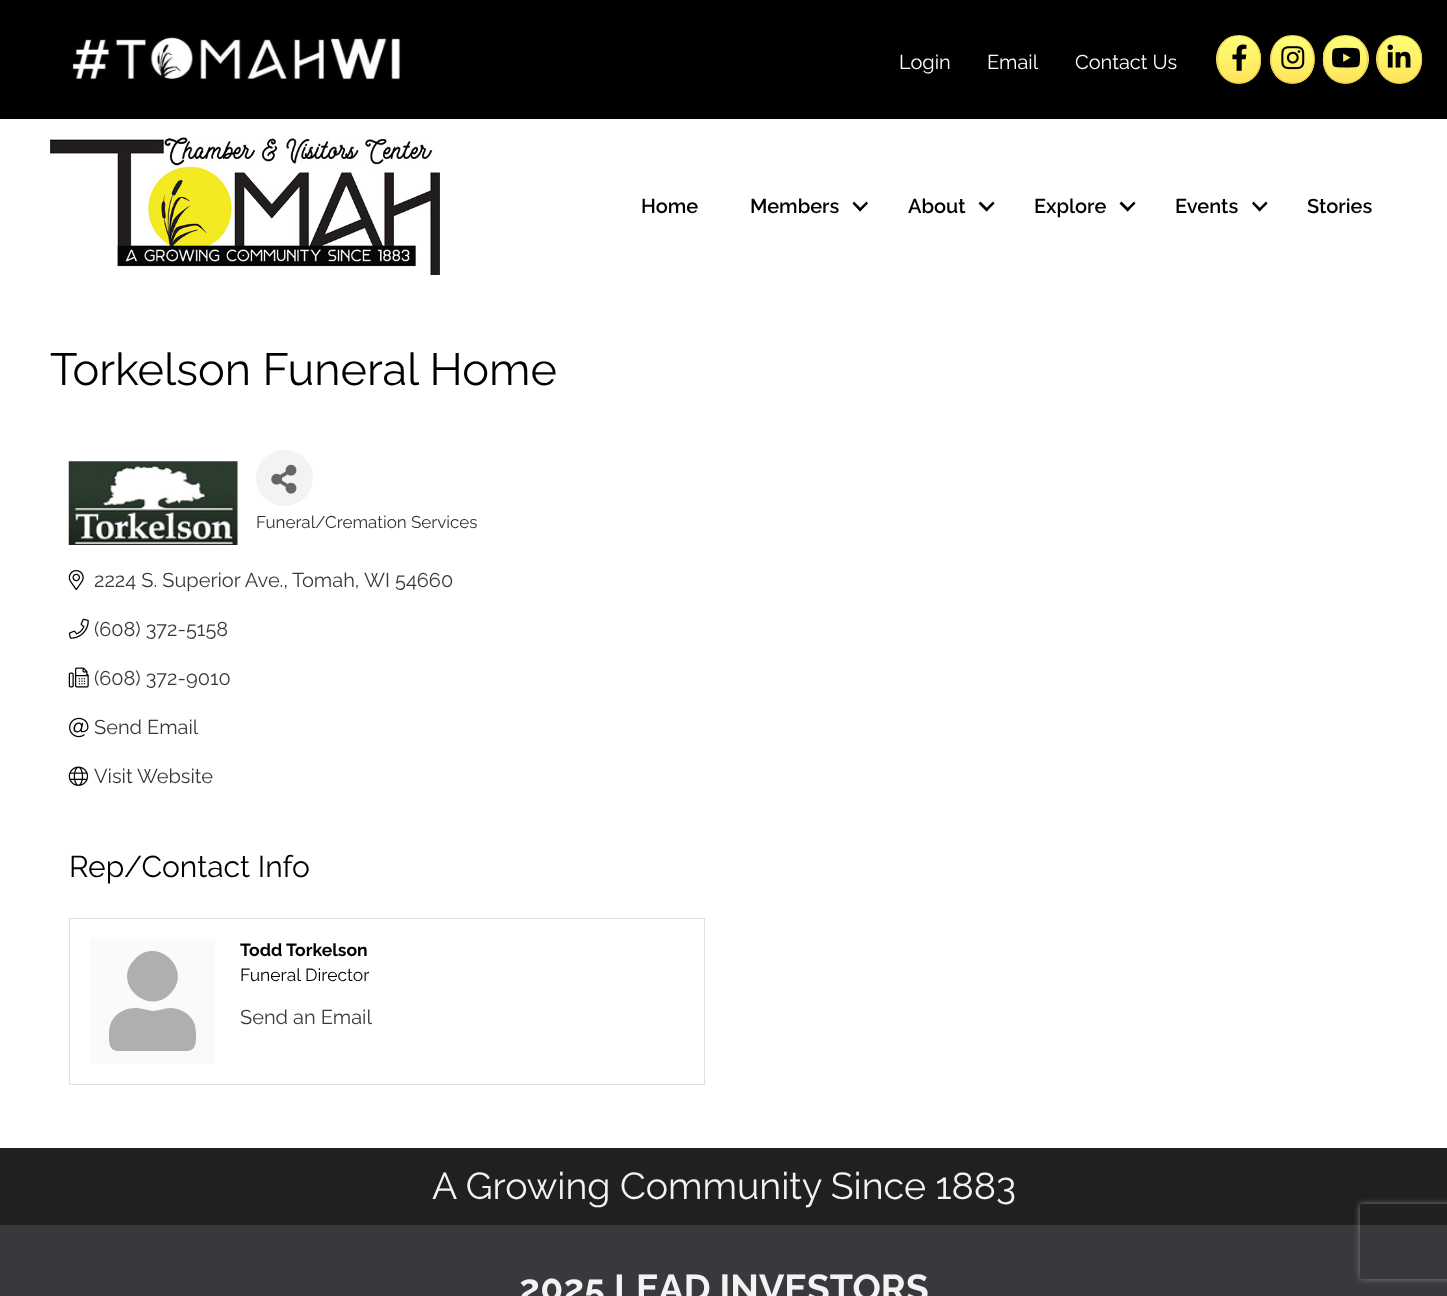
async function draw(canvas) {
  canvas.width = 1447
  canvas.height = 1296
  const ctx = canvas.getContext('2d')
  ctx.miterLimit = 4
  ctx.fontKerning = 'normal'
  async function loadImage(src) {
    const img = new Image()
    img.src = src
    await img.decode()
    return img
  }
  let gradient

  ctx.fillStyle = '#fff'
  ctx.fillRect(0, 0, 1447, 1296)
  ctx.fillStyle = '#000'
  ctx.fillRect(0, 0, 1447, 119)
  ctx.drawImage(await loadImage('image0.png'), 71, 36, 330, 45)
  ctx.font = '20px Raleway'
  ctx.fillStyle = '#fff'
  ctx.fillText('Login', 899, 69)
  ctx.fillText('Email', 987, 69)
  ctx.fillText('Contact Us', 1075, 69)
  gradient = ctx.createLinearGradient(1239, 36, 1239, 83)
  gradient.addColorStop(0, '#ffff78')
  gradient.addColorStop(1, '#fee45a')
  ctx.fillStyle = gradient
  ctx.beginPath()
  ctx.moveTo(1233, 83)
  ctx.bezierCurveTo(1223, 80, 1216, 71, 1216, 59)
  ctx.bezierCurveTo(1216, 48, 1223, 39, 1232, 36)
  ctx.lineTo(1245, 36)
  ctx.bezierCurveTo(1253, 39, 1260, 46, 1261, 56)
  ctx.lineTo(1261, 63)
  ctx.bezierCurveTo(1260, 73, 1253, 81, 1244, 83)
  ctx.closePath()
  ctx.fill()
  gradient = ctx.createLinearGradient(1239, 83, 1239, 129)
  gradient.addColorStop(0, '#ffff78')
  gradient.addColorStop(1, '#fee45a')
  ctx.fillStyle = gradient
  ctx.beginPath()
  ctx.moveTo(1244.5, 83)
  ctx.bezierCurveTo(1240.5, 84, 1237, 84, 1233, 83)
  ctx.closePath()
  ctx.fill()
  ctx.beginPath()
  ctx.moveTo(1239, 35.5)
  ctx.bezierCurveTo(1267.5, 35.5, 1267.5, 83, 1239, 83)
  ctx.bezierCurveTo(1210, 83, 1210, 35.5, 1239, 35.5)
  ctx.closePath()
  ctx.strokeStyle = '#ead046'
  ctx.lineWidth = 1.2
  ctx.stroke()
  ctx.drawImage(await loadImage('image1.png'), 1232, 44, 15, 27)
  gradient = ctx.createLinearGradient(1293, 36, 1293, 83)
  gradient.addColorStop(0, '#ffff78')
  gradient.addColorStop(1, '#fee45a')
  ctx.fillStyle = gradient
  ctx.beginPath()
  ctx.moveTo(1287, 83)
  ctx.bezierCurveTo(1272, 79, 1266, 61, 1273, 48)
  ctx.bezierCurveTo(1275, 43, 1280, 38, 1286, 36)
  ctx.lineTo(1299, 36)
  ctx.bezierCurveTo(1320, 41, 1320, 78, 1298, 83)
  ctx.closePath()
  ctx.fill()
  gradient = ctx.createLinearGradient(1293, 83, 1293, 129)
  gradient.addColorStop(0, '#ffff78')
  gradient.addColorStop(1, '#fee45a')
  ctx.fillStyle = gradient
  ctx.beginPath()
  ctx.moveTo(1298, 83)
  ctx.bezierCurveTo(1294.5, 84, 1290.5, 84, 1287, 83)
  ctx.closePath()
  ctx.fill()
  ctx.beginPath()
  ctx.moveTo(1292.5, 35.5)
  ctx.bezierCurveTo(1321.5, 35.5, 1321.5, 83, 1292.5, 83)
  ctx.bezierCurveTo(1263.5, 83, 1263.5, 35.5, 1292.5, 35.5)
  ctx.closePath()
  ctx.stroke()
  ctx.drawImage(await loadImage('image2.png'), 1281, 46, 24, 24)
  gradient = ctx.createLinearGradient(1346, 36, 1346, 83)
  gradient.addColorStop(0, '#ffff78')
  gradient.addColorStop(1, '#fee45a')
  ctx.fillStyle = gradient
  ctx.beginPath()
  ctx.moveTo(1323, 54)
  ctx.bezierCurveTo(1325, 46, 1331, 39, 1339, 36)
  ctx.lineTo(1352, 36)
  ctx.bezierCurveTo(1362, 39, 1369, 48, 1369, 59)
  ctx.bezierCurveTo(1369, 71, 1361, 80, 1351, 83)
  ctx.lineTo(1340, 83)
  ctx.bezierCurveTo(1331, 81, 1325, 74, 1323, 64)
  ctx.closePath()
  ctx.fill()
  gradient = ctx.createLinearGradient(1346, 83, 1346, 129)
  gradient.addColorStop(0, '#ffff78')
  gradient.addColorStop(1, '#fee45a')
  ctx.fillStyle = gradient
  ctx.beginPath()
  ctx.moveTo(1351.5, 83)
  ctx.bezierCurveTo(1347.5, 84, 1343.5, 84, 1340, 83)
  ctx.closePath()
  ctx.fill()
  ctx.beginPath()
  ctx.moveTo(1345.5, 35.5)
  ctx.bezierCurveTo(1375, 35.5, 1375, 83, 1345.5, 83)
  ctx.bezierCurveTo(1316, 83, 1316, 35.5, 1345.5, 35.5)
  ctx.closePath()
  ctx.stroke()
  ctx.drawImage(await loadImage('image3.png'), 1332, 47, 28, 21)
  gradient = ctx.createLinearGradient(1399, 36, 1399, 83)
  gradient.addColorStop(0, '#ffff78')
  gradient.addColorStop(1, '#fee45a')
  ctx.fillStyle = gradient
  ctx.beginPath()
  ctx.moveTo(1394, 83)
  ctx.bezierCurveTo(1384, 80, 1376, 71, 1376, 59)
  ctx.bezierCurveTo(1376, 48, 1383, 39, 1393, 36)
  ctx.lineTo(1406, 36)
  ctx.bezierCurveTo(1416, 39, 1422, 48, 1422, 59)
  ctx.bezierCurveTo(1422, 71, 1415, 80, 1405, 83)
  ctx.closePath()
  ctx.fill()
  gradient = ctx.createLinearGradient(1399, 83, 1399, 129)
  gradient.addColorStop(0, '#ffff78')
  gradient.addColorStop(1, '#fee45a')
  ctx.fillStyle = gradient
  ctx.beginPath()
  ctx.moveTo(1405, 83)
  ctx.bezierCurveTo(1401.5, 84, 1397.5, 84, 1393.5, 83)
  ctx.closePath()
  ctx.fill()
  ctx.beginPath()
  ctx.moveTo(1399.5, 35.5)
  ctx.bezierCurveTo(1429, 35.5, 1429, 83, 1399.5, 83)
  ctx.bezierCurveTo(1370, 83, 1370, 35.5, 1399.5, 35.5)
  ctx.closePath()
  ctx.stroke()
  ctx.drawImage(await loadImage('image4.png'), 1387, 44, 24, 24)
  ctx.drawImage(await loadImage('image5.png'), 50, 137, 390, 138)
  ctx.font = '600 20px Raleway'
  ctx.fillStyle = '#000'
  ctx.fillText('Home', 641, 213)
  ctx.fillText('Members', 750, 213)
  ctx.beginPath()
  ctx.moveTo(866.5, 201.5)
  ctx.lineTo(868, 203.5)
  ctx.lineTo(860, 211.5)
  ctx.lineTo(858.5, 209.5)
  ctx.closePath()
  ctx.fill()
  ctx.beginPath()
  ctx.moveTo(854, 201.5)
  ctx.lineTo(862, 209.5)
  ctx.lineTo(860, 211.5)
  ctx.lineTo(852.5, 203.5)
  ctx.closePath()
  ctx.fill()
  ctx.fillText('About', 908, 213)
  ctx.beginPath()
  ctx.moveTo(993, 201.5)
  ctx.lineTo(994.5, 203.5)
  ctx.lineTo(986.5, 211.5)
  ctx.lineTo(985, 209.5)
  ctx.closePath()
  ctx.fill()
  ctx.beginPath()
  ctx.moveTo(980.5, 201.5)
  ctx.lineTo(988.5, 209.5)
  ctx.lineTo(986.5, 211.5)
  ctx.lineTo(978.5, 203.5)
  ctx.closePath()
  ctx.fill()
  ctx.fillText('Explore', 1034, 213)
  ctx.beginPath()
  ctx.moveTo(1134, 201.5)
  ctx.lineTo(1135.5, 203.5)
  ctx.lineTo(1127.5, 211.5)
  ctx.lineTo(1126, 209.5)
  ctx.closePath()
  ctx.fill()
  ctx.beginPath()
  ctx.moveTo(1121.5, 201.5)
  ctx.lineTo(1129.5, 209.5)
  ctx.lineTo(1127.5, 211.5)
  ctx.lineTo(1119.5, 203.5)
  ctx.closePath()
  ctx.fill()
  ctx.fillText('Events', 1175, 213)
  ctx.beginPath()
  ctx.moveTo(1266, 201.5)
  ctx.lineTo(1267.5, 203.5)
  ctx.lineTo(1259.5, 211.5)
  ctx.lineTo(1258, 209.5)
  ctx.closePath()
  ctx.fill()
  ctx.beginPath()
  ctx.moveTo(1253.5, 201.5)
  ctx.lineTo(1261.5, 209.5)
  ctx.lineTo(1259.5, 211.5)
  ctx.lineTo(1252, 203.5)
  ctx.closePath()
  ctx.fill()
  ctx.fillText('Stories', 1307, 213)
  ctx.font = '45px Raleway'
  ctx.fillText('Torkelson Funeral Home', 50, 385)
  ctx.drawImage(await loadImage('image6.png'), 68, 461, 170, 84)
  ctx.fillStyle = '#f3f3f3'
  ctx.beginPath()
  ctx.roundRect(256, 450, 57, 56, 28)
  ctx.fill()
  ctx.drawImage(await loadImage('image7.png'), 271, 464, 26, 30)
  ctx.font = '17px Raleway'
  ctx.fillStyle = '#333'
  ctx.fillText('Funeral/Cremation Services', 256, 528)
  ctx.drawImage(await loadImage('image8.png'), 68, 570, 16, 20)
  ctx.font = '20px Raleway'
  ctx.fillStyle = '#38393c'
  ctx.fillText('2224 S. Superior Ave.,', 94, 587)
  ctx.fillText('Tomah,', 292, 587)
  ctx.fillText('WI 54660', 364, 587)
  ctx.drawImage(await loadImage('image9.png'), 68, 618, 21, 21)
  ctx.fillText('(608) 372-5158', 94, 636)
  ctx.drawImage(await loadImage('image10.png'), 68, 667, 21, 21)
  ctx.fillText('(608) 372-9010', 94, 685)
  ctx.drawImage(await loadImage('image11.png'), 69, 717, 20, 21)
  ctx.fillText('Send Email', 94, 734)
  ctx.drawImage(await loadImage('image12.png'), 68, 766, 21, 20)
  ctx.fillText('Visit Website', 94, 783)
  ctx.font = '30px Raleway'
  ctx.fillStyle = '#000'
  ctx.fillText('Rep/Contact Info', 69, 877)
  ctx.strokeStyle = '#dfdfdf'
  ctx.lineWidth = 1
  ctx.strokeRect(69.5, 918.5, 635, 166)
  ctx.fillStyle = '#fafafa'
  ctx.fillRect(90, 939, 125, 125)
  ctx.fillStyle = '#afafaf'
  ctx.beginPath()
  ctx.moveTo(170, 994)
  ctx.bezierCurveTo(147, 1017, 111, 982, 135, 959)
  ctx.bezierCurveTo(158, 935, 194, 971, 170, 994)
  ctx.closePath()
  ctx.moveTo(170, 1008)
  ctx.bezierCurveTo(179, 1008, 187, 1012, 192, 1019)
  ctx.bezierCurveTo(196, 1025, 196, 1031, 196, 1037)
  ctx.bezierCurveTo(196, 1053, 190, 1051, 175, 1051)
  ctx.lineTo(130, 1051)
  ctx.bezierCurveTo(115, 1051, 109, 1053, 109, 1037)
  ctx.bezierCurveTo(109, 1031, 109, 1025, 113, 1019)
  ctx.bezierCurveTo(118, 1012, 126, 1008, 135, 1008)
  ctx.bezierCurveTo(138, 1007, 140, 1009, 143, 1009)
  ctx.lineTo(152, 1011)
  ctx.bezierCurveTo(159, 1011, 164, 1008, 170, 1008)
  ctx.closePath()
  ctx.fill()
  ctx.font = 'bold 17.5px Raleway'
  ctx.fillStyle = '#000'
  ctx.fillText('Todd Torkelson', 240, 956)
  ctx.font = '17.5px Raleway'
  ctx.fillText('Funeral Director', 240, 981)
  ctx.font = '20px Raleway'
  ctx.fillStyle = '#38393c'
  ctx.fillText('Send an Email', 240, 1024)
  ctx.fillStyle = '#202020'
  ctx.fillRect(0, 1148, 1447, 77)
  ctx.font = '37.5px Raleway'
  ctx.fillStyle = '#f3f3f3'
  ctx.fillText('A Growing Community Since 1883', 432, 1199)
  ctx.fillStyle = '#38393c'
  ctx.fillRect(0, 1225, 1447, 71)
  ctx.font = 'bold 37.5px Raleway'
  ctx.fillStyle = '#f3f3f3'
  ctx.fillText('2025 LEAD INVESTORS', 519, 1301)
  ctx.save()
  ctx.beginPath()
  ctx.moveTo(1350, 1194)
  ctx.lineTo(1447, 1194)
  ctx.lineTo(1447, 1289)
  ctx.lineTo(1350, 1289)
  ctx.closePath()
  ctx.moveTo(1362.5, 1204)
  ctx.lineTo(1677.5, 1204)
  ctx.bezierCurveTo(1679, 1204, 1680, 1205, 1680, 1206.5)
  ctx.lineTo(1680, 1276.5)
  ctx.bezierCurveTo(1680, 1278, 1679, 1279, 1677.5, 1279)
  ctx.lineTo(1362.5, 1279)
  ctx.bezierCurveTo(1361, 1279, 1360, 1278, 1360, 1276.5)
  ctx.lineTo(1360, 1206.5)
  ctx.bezierCurveTo(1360, 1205, 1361, 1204, 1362.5, 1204)
  ctx.closePath()
  ctx.clip('evenodd')
  ctx.fillStyle = '#808080'
  ctx.filter = 'blur(3px)'
  ctx.beginPath()
  ctx.roundRect(1360, 1204, 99, 75, 2.5)
  ctx.fill()
  ctx.filter = 'none'
  ctx.restore()
}

draw(document.querySelector('canvas'))
